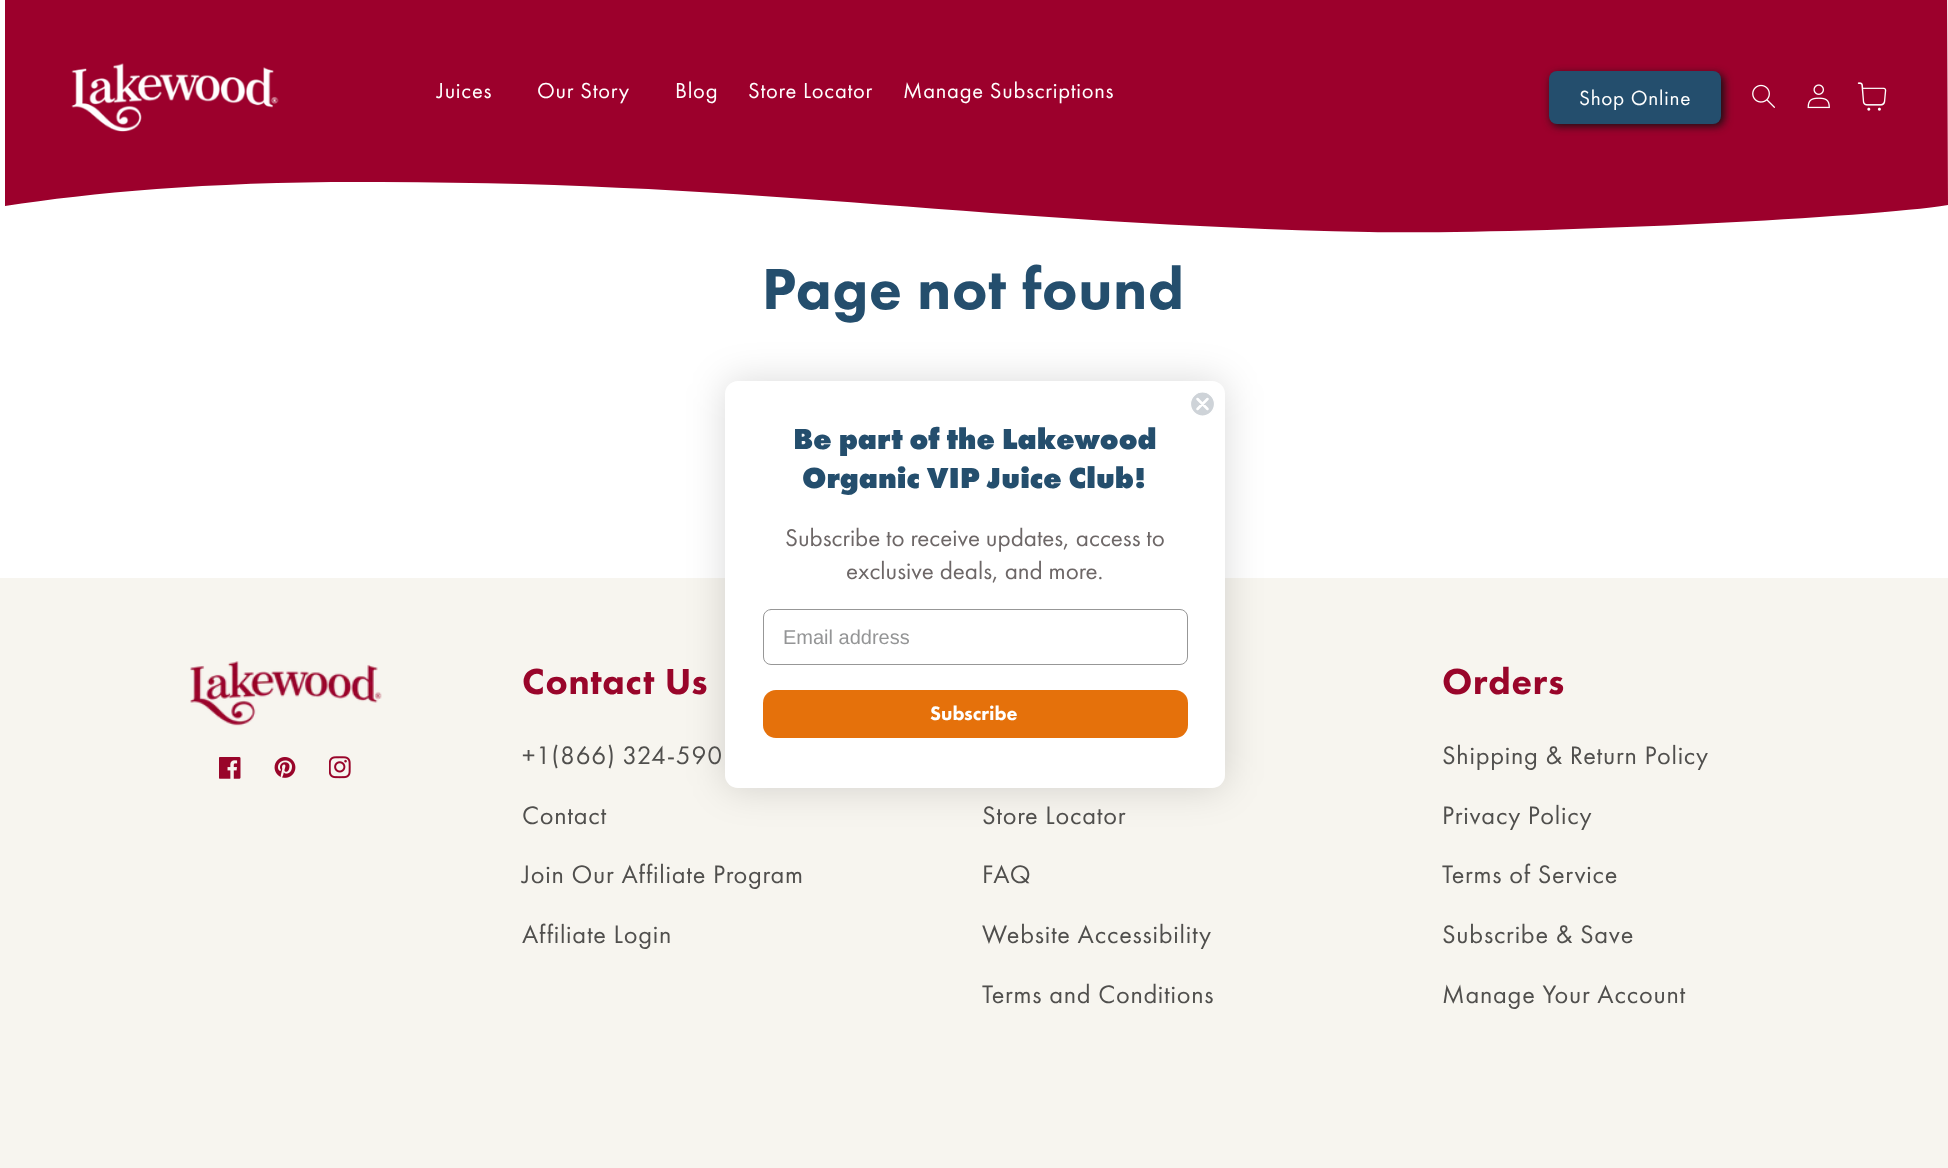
async function draw(canvas) {
  canvas.width = 1948
  canvas.height = 1168
  const ctx = canvas.getContext('2d')
  ctx.miterLimit = 4
  ctx.fontKerning = 'normal'
  async function loadImage(src) {
    const img = new Image()
    img.src = src
    await img.decode()
    return img
  }

  ctx.fillStyle = '#fff'
  ctx.fillRect(0, 0, 1948, 1168)
  ctx.fillStyle = '#9c002c'
  ctx.beginPath()
  ctx.moveTo(5, 206)
  ctx.bezierCurveTo(96, 192, 214, 181, 381, 182)
  ctx.bezierCurveTo(777, 183, 984, 224, 1369, 232)
  ctx.bezierCurveTo(1508, 235, 1862, 219, 1948, 205)
  ctx.lineTo(1947, -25)
  ctx.lineTo(5, -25)
  ctx.closePath()
  ctx.fill()
  ctx.drawImage(await loadImage('image0.png'), 71, 63, 208, 69)
  ctx.letterSpacing = '0.75px'
  ctx.font = '22.5px Futura PT'
  ctx.fillStyle = '#fff'
  ctx.fillText('Juices', 437, 98)
  ctx.fillText('Our Story', 537, 98)
  ctx.fillText('Blog', 675, 98)
  ctx.fillText('Store Locator', 748, 98)
  ctx.fillText('Manage Subscriptions', 903, 98)
  ctx.fillStyle = '#111'
  ctx.filter = 'blur(4px)'
  ctx.beginPath()
  ctx.roundRect(1551, 74, 173, 52, 8)
  ctx.fill()
  ctx.filter = 'none'
  ctx.fillStyle = '#244e6d'
  ctx.beginPath()
  ctx.roundRect(1549, 71, 172, 53, 8)
  ctx.fill()
  ctx.font = '21.25px Futura PT'
  ctx.fillStyle = '#fff'
  ctx.fillText('Shop Online', 1579, 105)
  ctx.drawImage(await loadImage('image1.png'), 1752, 84, 23, 24)
  ctx.drawImage(await loadImage('image2.png'), 1807, 84, 23, 25)
  ctx.drawImage(await loadImage('image3.png'), 1857, 82, 30, 29)
  ctx.font = '900 60px Futura PT'
  ctx.fillStyle = '#244e6d'
  ctx.fillText('Page not found', 762, 309)
  ctx.fillStyle = '#f7f5ef'
  ctx.fillRect(0, 578, 1948, 590)
  ctx.fillStyle = '#00000026'
  ctx.filter = 'blur(19px)'
  ctx.beginPath()
  ctx.roundRect(725, 381, 500, 407, 13)
  ctx.fill()
  ctx.filter = 'none'
  ctx.fillStyle = '#fff'
  ctx.beginPath()
  ctx.roundRect(725, 381, 500, 407, 13)
  ctx.fill()
  ctx.fillStyle = '#ced3d8'
  ctx.beginPath()
  ctx.arc(1202.5, 404, 12, 0, 2 * Math.PI)
  ctx.fill()
  ctx.strokeStyle = '#fff'
  ctx.lineWidth = 1.2
  ctx.stroke()
  ctx.beginPath()
  ctx.moveTo(1197.5, 399)
  ctx.lineTo(1207.5, 409)
  ctx.moveTo(1197.5, 409)
  ctx.lineTo(1207.5, 399)
  ctx.closePath()
  ctx.lineWidth = 2.5
  ctx.lineCap = 'round'
  ctx.lineJoin = 'round'
  ctx.stroke()
  ctx.letterSpacing = '0px'
  ctx.font = '800 30px Futura PT'
  ctx.fillStyle = '#244e6d'
  ctx.fillText('Be part of the Lakewood', 793, 449)
  ctx.fillText('Organic VIP Juice Club!', 802, 488)
  ctx.font = '25px Futura PT'
  ctx.fillStyle = '#6d6767'
  ctx.fillText('Subscribe to receive updates, access to', 785, 546)
  ctx.fillText('exclusive deals, and more.', 846, 579)
  ctx.beginPath()
  ctx.roundRect(763.5, 609.5, 424, 55, 7.5)
  ctx.strokeStyle = '#979797'
  ctx.lineWidth = 1
  ctx.lineJoin = 'miter'
  ctx.stroke()
  ctx.font = '20px Liberation Sans'
  ctx.fillStyle = '#949596'
  ctx.fillText('Email address', 783, 644)
  ctx.fillStyle = '#e5710b'
  ctx.beginPath()
  ctx.roundRect(763, 690, 425, 48, 13)
  ctx.fill()
  ctx.font = '900 20px Futura PT'
  ctx.fillStyle = '#fff'
  ctx.fillText('Subscribe', 930, 720)
  ctx.drawImage(await loadImage('image4.png'), 190, 661, 192, 65)
  ctx.drawImage(await loadImage('image5.png'), 219, 757, 22, 22)
  ctx.drawImage(await loadImage('image6.png'), 274, 757, 22, 21)
  ctx.drawImage(await loadImage('image7.png'), 329, 756, 22, 23)
  ctx.letterSpacing = '0.75px'
  ctx.font = '900 37.5px Futura PT'
  ctx.fillStyle = '#99052a'
  ctx.fillText('Contact Us', 522, 694)
  ctx.font = '26.25px Futura PT'
  ctx.fillStyle = '#504f4d'
  ctx.fillText('+1(866) 324-590', 522, 764)
  ctx.fillText('Contact', 522, 824)
  ctx.fillText('Join Our Affiliate Program', 522, 883)
  ctx.fillText('Affiliate Login', 522, 943)
  ctx.fillText('Store Locator', 982, 824)
  ctx.fillText('FAQ', 982, 883)
  ctx.fillText('Website Accessibility', 982, 943)
  ctx.fillText('Terms and Conditions', 982, 1003)
  ctx.font = '900 37.5px Futura PT'
  ctx.fillStyle = '#99052a'
  ctx.fillText('Orders', 1442, 694)
  ctx.font = '26.25px Futura PT'
  ctx.fillStyle = '#504f4d'
  ctx.fillText('Shipping & Return Policy', 1442, 764)
  ctx.fillText('Privacy Policy', 1442, 824)
  ctx.fillText('Terms of Service', 1442, 883)
  ctx.fillText('Subscribe & Save', 1442, 943)
  ctx.fillText('Manage Your Account', 1442, 1003)
}

draw(document.querySelector('canvas'))
